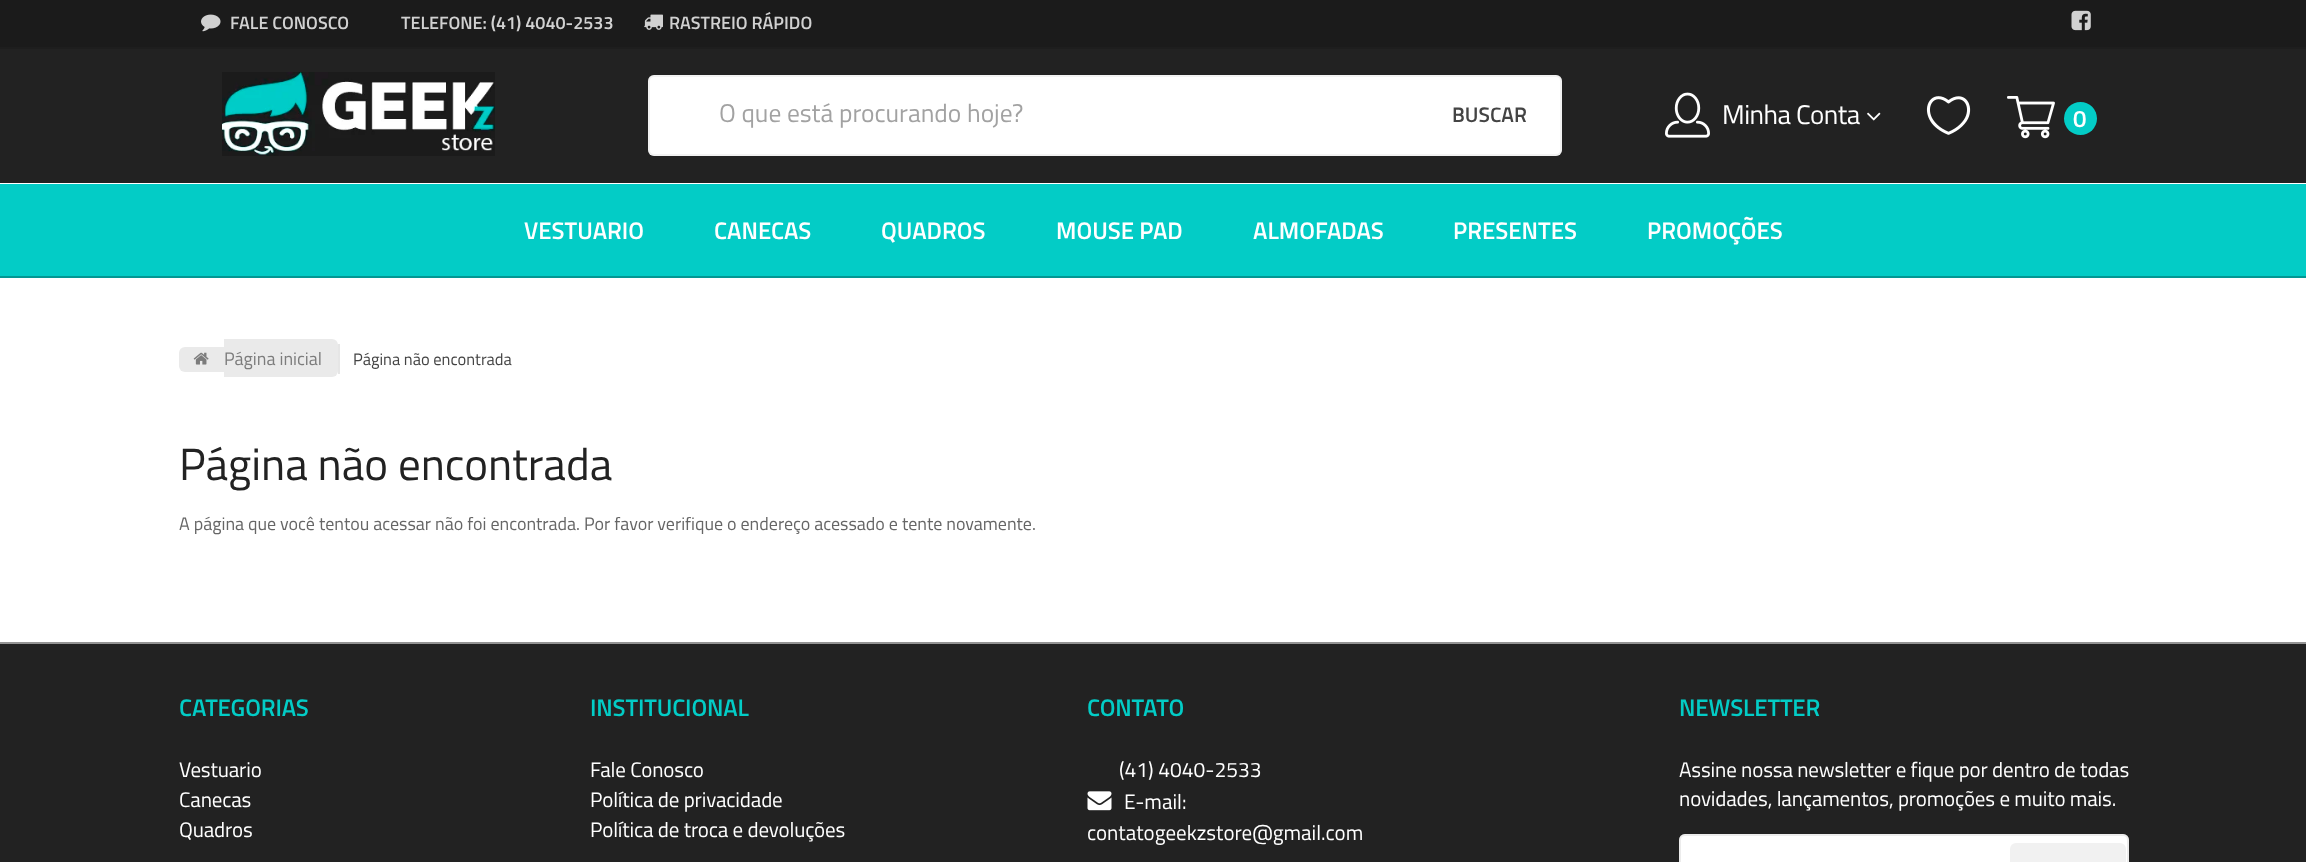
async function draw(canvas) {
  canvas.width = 2306
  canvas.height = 862
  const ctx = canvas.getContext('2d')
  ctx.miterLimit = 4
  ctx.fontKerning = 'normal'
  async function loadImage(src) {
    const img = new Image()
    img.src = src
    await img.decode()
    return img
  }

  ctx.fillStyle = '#fff'
  ctx.fillRect(0, 0, 2306, 862)
  ctx.fillStyle = '#1b1b1b'
  ctx.fillRect(0, 0, 2306, 47)
  ctx.drawImage(await loadImage('image0.png'), 201, 14, 20, 18)
  ctx.font = '600 18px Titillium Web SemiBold'
  ctx.fillStyle = '#d1d1d1'
  ctx.fillText('FALE CONOSCO', 230, 29)
  ctx.fillText('TELEFONE: (41) 4040-2533', 401, 29)
  ctx.drawImage(await loadImage('image1.png'), 644, 14, 19, 16)
  ctx.fillText('RASTREIO RÁPIDO', 669, 29)
  ctx.drawImage(await loadImage('image2.png'), 2071, 10, 20, 21)
  ctx.fillStyle = '#222'
  ctx.fillRect(0, 49, 2306, 134)
  ctx.fillStyle = '#1e1e1e'
  ctx.fillRect(0, 47, 2306, 2)
  ctx.drawImage(await loadImage('image3.png'), 222, 72, 273, 84)
  ctx.fillStyle = '#fff'
  ctx.beginPath()
  ctx.roundRect(648, 75, 914, 81, 6)
  ctx.fill()
  ctx.beginPath()
  ctx.roundRect(649, 76, 912, 79, 5)
  ctx.strokeStyle = '#cccccc40'
  ctx.lineWidth = 2
  ctx.stroke()
  ctx.font = '25.5px Titillium Web'
  ctx.fillStyle = '#a2a2a2'
  ctx.fillText('O que está procurando hoje?', 719, 122)
  ctx.font = '600 21px Titillium Web SemiBold'
  ctx.fillStyle = '#444'
  ctx.fillText('BUSCAR', 1452, 122)
  ctx.drawImage(await loadImage('image4.png'), 1665, 92, 45, 46)
  ctx.letterSpacing = '-0.5px'
  ctx.font = '27px Titillium Web'
  ctx.fillStyle = '#fff'
  ctx.fillText('Minha Conta', 1722, 124)
  ctx.drawImage(await loadImage('image5.png'), 1867, 112, 14, 9)
  ctx.drawImage(await loadImage('image6.png'), 1926, 96, 45, 39)
  ctx.drawImage(await loadImage('image7.png'), 2007, 96, 48, 43)
  ctx.fillStyle = '#03ccc6'
  ctx.beginPath()
  ctx.arc(2080.5, 118.5, 16.5, 0, 2 * Math.PI)
  ctx.fill()
  ctx.letterSpacing = '0px'
  ctx.font = '600 24px Titillium Web SemiBold'
  ctx.fillStyle = '#fff'
  ctx.fillText('0', 2073, 127)
  ctx.fillStyle = '#03ccc6'
  ctx.fillRect(0, 184, 2306, 92)
  ctx.fillStyle = '#029793'
  ctx.fillRect(0, 276, 2306, 2)
  ctx.fillStyle = '#fff'
  ctx.fillText('VESTUARIO', 524, 239)
  ctx.fillText('CANECAS', 714, 239)
  ctx.fillText('QUADROS', 881, 239)
  ctx.fillText('MOUSE PAD', 1056, 239)
  ctx.fillText('ALMOFADAS', 1253, 239)
  ctx.fillText('PRESENTES', 1453, 239)
  ctx.fillText('PROMOÇÕES', 1647, 239)
  ctx.fillStyle = '#eaeaea'
  ctx.beginPath()
  ctx.roundRect(179, 347, 45, 25, [6, 0, 0, 6])
  ctx.fill()
  ctx.beginPath()
  ctx.roundRect(224, 339, 114, 38, [0, 6, 6, 0])
  ctx.fill()
  ctx.drawImage(await loadImage('image8.png'), 193, 352, 16, 13)
  ctx.font = '18px Titillium Web'
  ctx.fillStyle = '#7c7c7c'
  ctx.fillText('Página inicial', 224, 365)
  ctx.fillStyle = '#e6e6e6'
  ctx.fillRect(338, 344, 2, 30)
  ctx.font = '16.5px Titillium Web'
  ctx.fillStyle = '#444'
  ctx.fillText('Página não encontrada', 353, 365)
  ctx.font = '45px Titillium Web'
  ctx.fillStyle = '#222'
  ctx.fillText('Página não encontrada', 179, 480)
  ctx.font = '18px Titillium Web'
  ctx.fillStyle = '#666'
  ctx.fillText('A página que você tentou acessar não foi encontrada. Por favor verifique o endereço acessado e tente novamente.', 179, 530)
  ctx.fillStyle = '#222'
  ctx.fillRect(0, 644, 2306, 218)
  ctx.fillStyle = '#949494'
  ctx.fillRect(0, 642, 2306, 2)
  ctx.letterSpacing = '-0.15px'
  ctx.font = '600 24px Titillium Web SemiBold'
  ctx.fillStyle = '#03ccc6'
  ctx.fillText('CATEGORIAS', 179, 716)
  ctx.font = '21px Titillium Web'
  ctx.fillStyle = '#fff'
  ctx.fillText('Vestuario', 179, 777)
  ctx.fillText('Canecas', 179, 807)
  ctx.fillText('Quadros', 179, 837)
  ctx.font = '600 24px Titillium Web SemiBold'
  ctx.fillStyle = '#03ccc6'
  ctx.fillText('INSTITUCIONAL', 590, 716)
  ctx.font = '21px Titillium Web'
  ctx.fillStyle = '#fff'
  ctx.fillText('Fale Conosco', 590, 777)
  ctx.fillText('Política de privacidade', 590, 807)
  ctx.fillText('Política de troca e devoluções', 590, 837)
  ctx.font = '600 24px Titillium Web SemiBold'
  ctx.fillStyle = '#03ccc6'
  ctx.fillText('CONTATO', 1087, 716)
  ctx.letterSpacing = '0px'
  ctx.font = '21px Titillium Web'
  ctx.fillStyle = '#fff'
  ctx.fillText('(41) 4040-2533', 1119, 777)
  ctx.drawImage(await loadImage('image9.png'), 1087, 791, 25, 20)
  ctx.fillText('E-mail:', 1124, 809)
  ctx.fillText('contatogeekzstore@gmail.com', 1087, 840)
  ctx.letterSpacing = '-0.15px'
  ctx.font = '600 24px Titillium Web SemiBold'
  ctx.fillStyle = '#03ccc6'
  ctx.fillText('NEWSLETTER', 1679, 716)
  ctx.font = '21px Titillium Web'
  ctx.fillStyle = '#fff'
  ctx.fillText('Assine nossa newsletter e fique por dentro de todas', 1679, 777)
  ctx.fillText('novidades, lançamentos, promoções e muito mais.', 1679, 806)
  ctx.beginPath()
  ctx.roundRect(1679, 834, 450, 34, 6)
  ctx.fill()
  ctx.beginPath()
  ctx.roundRect(1680, 835, 448, 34, 5)
  ctx.strokeStyle = '#cccccc61'
  ctx.stroke()
  ctx.fillStyle = '#f1f1f1'
  ctx.beginPath()
  ctx.roundRect(2010, 843, 116, 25, 6)
  ctx.fill()
}

draw(document.querySelector('canvas'))
